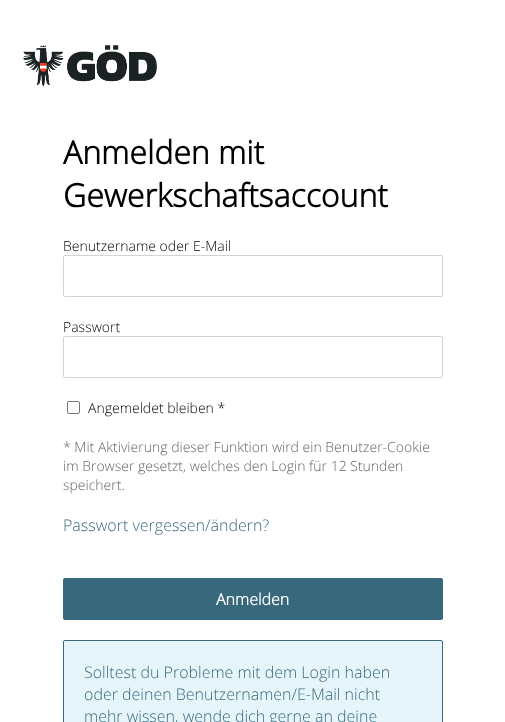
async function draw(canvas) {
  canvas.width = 505
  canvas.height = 722
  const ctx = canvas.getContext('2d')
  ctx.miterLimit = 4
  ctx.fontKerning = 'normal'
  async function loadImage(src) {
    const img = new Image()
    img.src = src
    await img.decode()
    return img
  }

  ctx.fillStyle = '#fff'
  ctx.fillRect(0, 0, 505, 722)
  ctx.drawImage(await loadImage('image0.png'), 23, 45, 134, 42)
  ctx.font = 'bold 32px Open Sans'
  ctx.fillStyle = '#000'
  ctx.fillText('Anmelden mit', 63, 164)
  ctx.fillText('Gewerkschaftsaccount', 63, 207)
  ctx.font = '300 14px Open Sans'
  ctx.fillText('Benutzername oder E-Mail', 63, 251)
  ctx.beginPath()
  ctx.roundRect(63.5, 255.5, 379, 41, 1.5)
  ctx.strokeStyle = '#d3d3d3'
  ctx.stroke()
  ctx.fillText('Passwort', 63, 332)
  ctx.beginPath()
  ctx.roundRect(63.5, 336.5, 379, 41, 1.5)
  ctx.stroke()
  ctx.beginPath()
  ctx.roundRect(67.5, 401.5, 12, 12, 1.5)
  ctx.strokeStyle = '#767676'
  ctx.stroke()
  ctx.fillText('Angemeldet bleiben *', 88, 413)
  ctx.fillStyle = '#646464'
  ctx.fillText('* Mit Aktivierung dieser Funktion wird ein Benutzer-Cookie', 63, 452)
  ctx.fillText('im Browser gesetzt, welches den Login für 12 Stunden', 63, 471)
  ctx.fillText('speichert.', 63, 490)
  ctx.font = '300 16px Open Sans'
  ctx.fillStyle = '#37687b'
  ctx.fillText('Passwort vergessen/ändern?', 63, 531)
  ctx.beginPath()
  ctx.roundRect(63, 578, 380, 42, 2)
  ctx.fill()
  ctx.font = 'bold 16px Open Sans'
  ctx.fillStyle = '#fff'
  ctx.fillText('Anmelden', 216, 605)
  ctx.fillStyle = '#e6f5fa'
  ctx.beginPath()
  ctx.roundRect(63, 640, 380, 82, [2, 2, 0, 0])
  ctx.fill()
  ctx.beginPath()
  ctx.roundRect(63.5, 640.5, 379, 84, 1.5)
  ctx.strokeStyle = '#37687b'
  ctx.stroke()
  ctx.font = '300 16px Open Sans'
  ctx.fillStyle = '#37687b'
  ctx.fillText('Solltest du Probleme mit dem Login haben', 84, 678)
  ctx.fillText('oder deinen Benutzernamen/E-Mail nicht', 84, 700)
  ctx.fillText('mehr wissen, wende dich gerne an deine', 84, 722)
}

draw(document.querySelector('canvas'))
